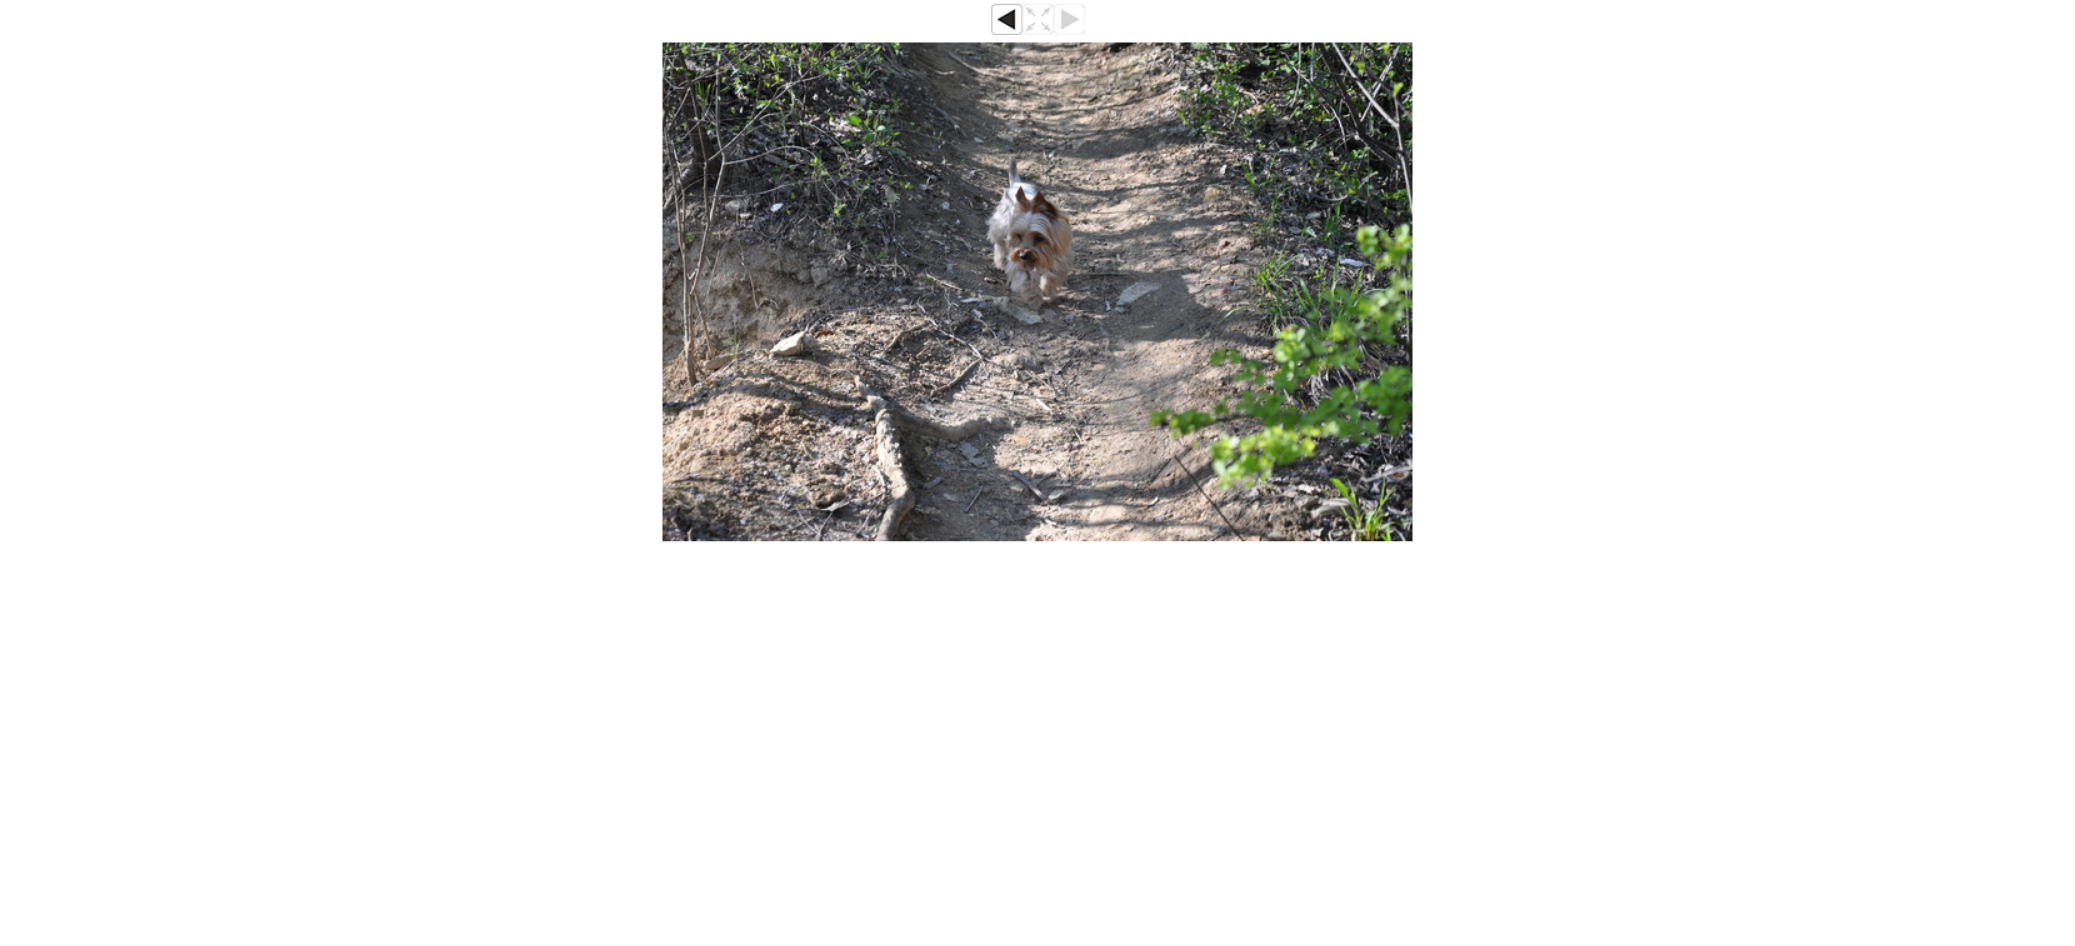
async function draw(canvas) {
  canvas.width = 2075
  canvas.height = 946
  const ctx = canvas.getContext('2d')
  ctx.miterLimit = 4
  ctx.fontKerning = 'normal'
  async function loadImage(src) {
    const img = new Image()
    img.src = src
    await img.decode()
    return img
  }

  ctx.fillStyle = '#fff'
  ctx.fillRect(0, 0, 2075, 946)
  ctx.drawImage(await loadImage('image0.png'), 991, 3, 32, 32)
  ctx.drawImage(await loadImage('image1.png'), 1022, 3, 32, 32)
  ctx.drawImage(await loadImage('image2.png'), 1054, 3, 31, 32)
  ctx.drawImage(await loadImage('image3.png'), 662, 42, 751, 500)
}

draw(document.querySelector('canvas'))
